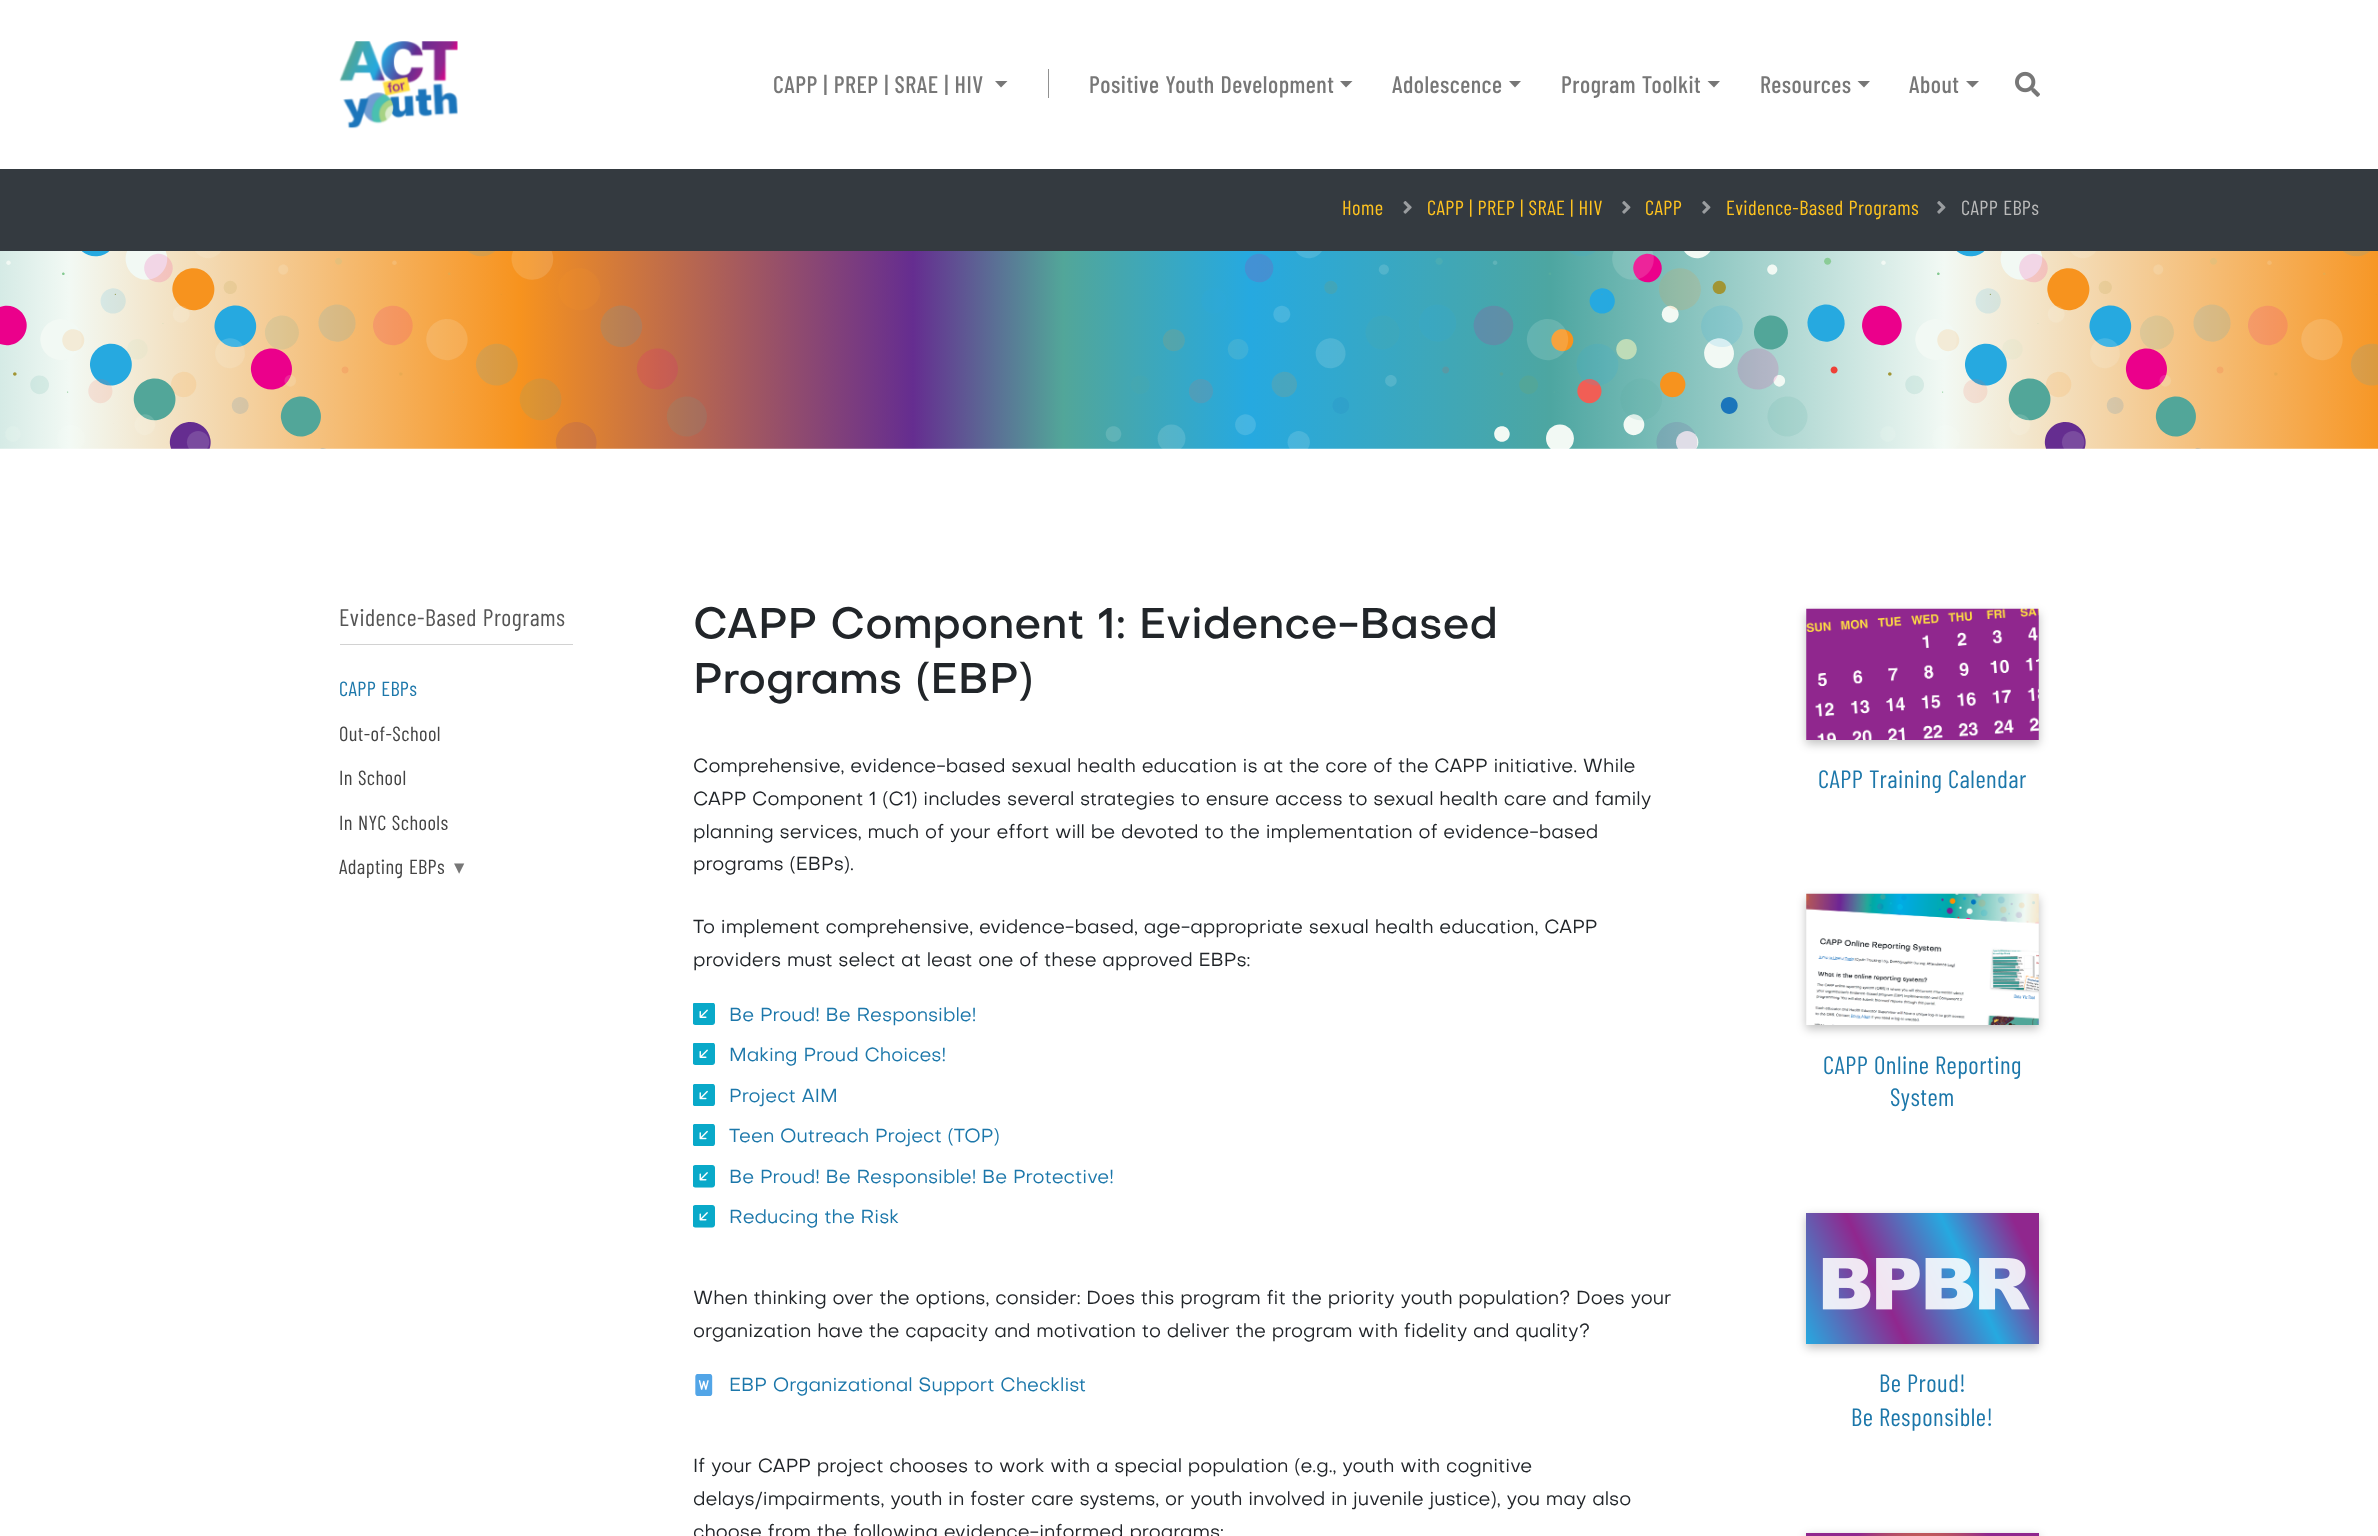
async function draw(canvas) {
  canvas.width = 2378
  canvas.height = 1536
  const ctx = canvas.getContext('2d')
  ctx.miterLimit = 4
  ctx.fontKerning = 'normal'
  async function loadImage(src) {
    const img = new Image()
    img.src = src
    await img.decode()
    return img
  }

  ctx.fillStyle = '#fff'
  ctx.fillRect(0, 0, 2378, 1536)
  ctx.drawImage(await loadImage('image0.png'), 339, 41, 119, 88)
  ctx.letterSpacing = '0.5px'
  ctx.wordSpacing = '0.5px'
  ctx.font = '500 24px Barlow Condensed'
  ctx.fillStyle = '#777'
  ctx.fillText('CAPP | PREP | SRAE | HIV', 773, 93)
  ctx.beginPath()
  ctx.moveTo(995, 81)
  ctx.lineTo(1007.5, 81)
  ctx.lineTo(1001, 87.5)
  ctx.closePath()
  ctx.fill()
  ctx.fillStyle = '#919191'
  ctx.fillRect(1048, 69, 1, 29)
  ctx.fillStyle = '#777'
  ctx.fillText('Positive Youth Development', 1089, 93)
  ctx.beginPath()
  ctx.moveTo(1340, 81)
  ctx.lineTo(1352.5, 81)
  ctx.lineTo(1346, 87.5)
  ctx.closePath()
  ctx.fill()
  ctx.wordSpacing = '0px'
  ctx.fillText('Adolescence', 1392, 93)
  ctx.beginPath()
  ctx.moveTo(1509, 81)
  ctx.lineTo(1521, 81)
  ctx.lineTo(1515, 87.5)
  ctx.closePath()
  ctx.fill()
  ctx.wordSpacing = '0.5px'
  ctx.fillText('Program Toolkit', 1561, 93)
  ctx.beginPath()
  ctx.moveTo(1707.5, 81)
  ctx.lineTo(1720, 81)
  ctx.lineTo(1714, 87.5)
  ctx.closePath()
  ctx.fill()
  ctx.wordSpacing = '0px'
  ctx.fillText('Resources', 1760, 93)
  ctx.beginPath()
  ctx.moveTo(1857.5, 81)
  ctx.lineTo(1870, 81)
  ctx.lineTo(1864, 87.5)
  ctx.closePath()
  ctx.fill()
  ctx.fillText('About', 1909, 93)
  ctx.beginPath()
  ctx.moveTo(1966, 81)
  ctx.lineTo(1979, 81)
  ctx.lineTo(1972.5, 87.5)
  ctx.closePath()
  ctx.fill()
  ctx.drawImage(await loadImage('image1.png'), 2015, 71, 25, 26)
  ctx.fillStyle = '#343a40'
  ctx.fillRect(0, 169, 2378, 82)
  ctx.letterSpacing = '0.4px'
  ctx.font = '20.5px Barlow Condensed'
  ctx.fillStyle = '#ffc31f'
  ctx.fillText('Home', 1342, 215)
  ctx.drawImage(await loadImage('image2.png'), 1403, 201, 9, 13)
  ctx.wordSpacing = '0.5px'
  ctx.fillText('CAPP | PREP | SRAE | HIV', 1427, 215)
  ctx.drawImage(await loadImage('image3.png'), 1622, 201, 9, 13)
  ctx.wordSpacing = '0px'
  ctx.fillText('CAPP', 1645, 215)
  ctx.drawImage(await loadImage('image3.png'), 1702, 201, 9, 13)
  ctx.wordSpacing = '0.5px'
  ctx.fillText('Evidence-Based Programs', 1726, 215)
  ctx.drawImage(await loadImage('image4.png'), 1937, 201, 9, 13)
  ctx.fillStyle = '#bbb'
  ctx.fillText('CAPP EBPs', 1961, 215)
  ctx.drawImage(await loadImage('image5.png'), 0, 251, 2378, 198)
  ctx.letterSpacing = '0.5px'
  ctx.font = '24px Barlow Condensed'
  ctx.fillStyle = '#555'
  ctx.fillText('Evidence-Based Programs', 339, 626)
  ctx.fillStyle = '#d2d2d2'
  ctx.fillRect(340, 644, 233, 1)
  ctx.letterSpacing = '0.4px'
  ctx.font = '20.5px Barlow Condensed'
  ctx.fillStyle = '#1c77aa'
  ctx.fillText('CAPP EBPs', 339, 696)
  ctx.wordSpacing = '0px'
  ctx.fillStyle = '#444'
  ctx.fillText('Out-of-School', 339, 741)
  ctx.wordSpacing = '0.5px'
  ctx.fillText('In School', 339, 785)
  ctx.fillText('In NYC Schools', 339, 830)
  ctx.wordSpacing = '1px'
  ctx.fillText('Adapting EBPs', 339, 874)
  ctx.wordSpacing = '0px'
  ctx.font = '20.5px DejaVu Sans'
  ctx.fillStyle = '#777'
  ctx.fillText('▾', 454, 874)
  ctx.letterSpacing = '0px'
  ctx.font = '500 42.5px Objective'
  ctx.fillStyle = '#212529'
  ctx.fillText('CAPP Component 1: Evidence-Based', 693, 638)
  ctx.fillText('Programs (EBP)', 693, 693)
  ctx.font = '18.75px Objective'
  ctx.fillText('Comprehensive, evidence-based sexual health education is at the core of the CAPP initiative. While', 693, 772)
  ctx.fillText('CAPP Component 1 (C1) includes several strategies to ensure access to sexual health care and family', 693, 805)
  ctx.fillText('planning services, much of your effort will be devoted to the implementation of evidence-based', 693, 838)
  ctx.fillText('programs (EBPs).', 693, 870)
  ctx.fillText('To implement comprehensive, evidence-based, age-appropriate sexual health education, CAPP', 693, 933)
  ctx.fillText('providers must select at least one of these approved EBPs:', 693, 966)
  ctx.drawImage(await loadImage('image6.png'), 693, 1003, 22, 22)
  ctx.fillStyle = '#1c77aa'
  ctx.fillText('Be Proud! Be Responsible!', 729, 1021)
  ctx.drawImage(await loadImage('image6.png'), 693, 1043, 22, 22)
  ctx.fillText('Making Proud Choices!', 729, 1061)
  ctx.drawImage(await loadImage('image7.png'), 693, 1084, 22, 22)
  ctx.fillText('Project AIM', 729, 1102)
  ctx.drawImage(await loadImage('image7.png'), 693, 1124, 22, 22)
  ctx.fillText('Teen Outreach Project (TOP)', 729, 1142)
  ctx.drawImage(await loadImage('image8.png'), 693, 1165, 22, 23)
  ctx.fillText('Be Proud! Be Responsible! Be Protective!', 729, 1183)
  ctx.drawImage(await loadImage('image8.png'), 693, 1205, 22, 23)
  ctx.fillText('Reducing the Risk', 729, 1223)
  ctx.fillStyle = '#212529'
  ctx.fillText('When thinking over the options, consider: Does this program fit the priority youth population? Does your', 693, 1304)
  ctx.fillText('organization have the capacity and motivation to deliver the program with fidelity and quality?', 693, 1337)
  ctx.drawImage(await loadImage('image9.png'), 695, 1374, 18, 22)
  ctx.fillStyle = '#1c77aa'
  ctx.fillText('EBP Organizational Support Checklist', 729, 1391)
  ctx.fillStyle = '#212529'
  ctx.fillText('If your CAPP project chooses to work with a special population (e.g., youth with cognitive', 693, 1472)
  ctx.fillText('delays/impairments, youth in foster care systems, or youth involved in juvenile justice), you may also', 693, 1505)
  ctx.fillText('choose from the following evidence-informed programs:', 693, 1538)
  ctx.fillStyle = '#0000003d'
  ctx.filter = 'blur(5px)'
  ctx.beginPath()
  ctx.rect(1806, 613, 233, 131)
  ctx.fill()
  ctx.filter = 'none'
  ctx.drawImage(await loadImage('image10.png'), 1806, 608, 233, 132)
  ctx.letterSpacing = '0.5px'
  ctx.font = '25px Barlow Condensed'
  ctx.fillStyle = '#1c77aa'
  ctx.fillText('CAPP Training Calendar', 1818, 788)
  ctx.fillStyle = '#0000003d'
  ctx.filter = 'blur(5px)'
  ctx.beginPath()
  ctx.rect(1806, 898, 233, 131)
  ctx.fill()
  ctx.filter = 'none'
  ctx.drawImage(await loadImage('image11.png'), 1806, 893, 233, 132)
  ctx.fillStyle = '#1c77aa'
  ctx.fillText('CAPP Online Reporting', 1823, 1074)
  ctx.fillText('System', 1890, 1106)
  ctx.fillStyle = '#0000003d'
  ctx.filter = 'blur(5px)'
  ctx.beginPath()
  ctx.rect(1806, 1216, 233, 132)
  ctx.fill()
  ctx.filter = 'none'
  ctx.drawImage(await loadImage('image12.png'), 1806, 1213, 233, 131)
  ctx.fillStyle = '#1c77aa'
  ctx.fillText('Be Proud!', 1879, 1392)
  ctx.fillText('Be Responsible!', 1851, 1426)
  ctx.fillStyle = '#0000003d'
  ctx.filter = 'blur(5px)'
  ctx.beginPath()
  ctx.rect(1806, 1536, 233, 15)
  ctx.fill()
  ctx.filter = 'none'
  ctx.drawImage(await loadImage('image13.png'), 1806, 1533, 233, 3)
}

draw(document.querySelector('canvas'))
